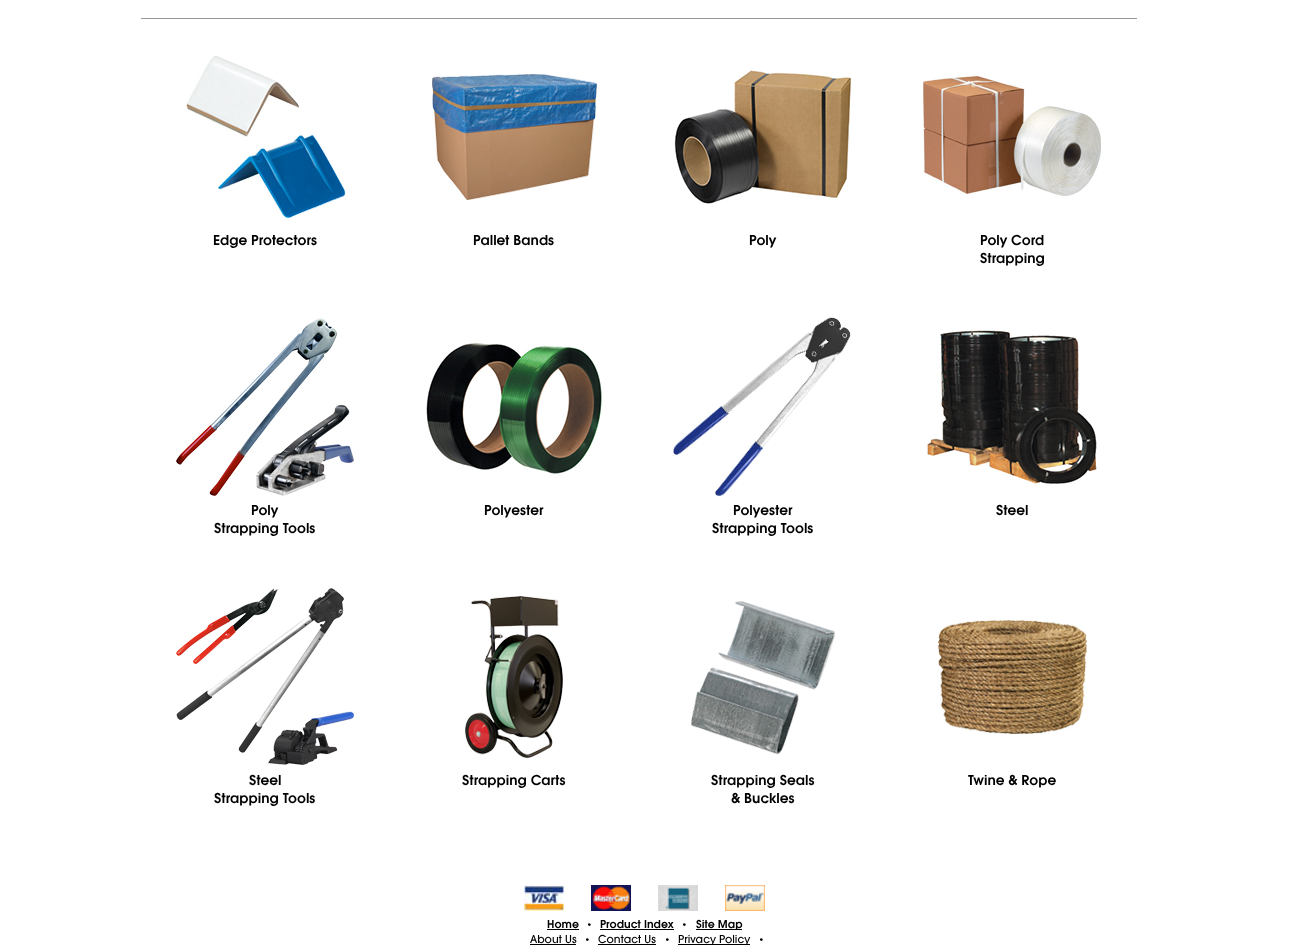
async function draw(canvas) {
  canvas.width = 1289
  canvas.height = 949
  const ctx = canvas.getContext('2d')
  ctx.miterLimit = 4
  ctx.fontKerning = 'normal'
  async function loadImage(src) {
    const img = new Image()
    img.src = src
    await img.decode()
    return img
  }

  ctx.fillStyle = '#fff'
  ctx.fillRect(0, 0, 1289, 949)
  ctx.fillStyle = '#999'
  ctx.fillRect(141, 18, 996, 1)
  ctx.drawImage(await loadImage('image0.png'), 185, 56, 161, 162)
  ctx.font = '600 15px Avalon'
  ctx.fillStyle = '#000'
  ctx.fillText('Edge Protectors', 213, 245)
  ctx.drawImage(await loadImage('image1.png'), 432, 74, 167, 126)
  ctx.fillText('Pallet Bands', 473, 245)
  ctx.drawImage(await loadImage('image2.png'), 674, 70, 178, 134)
  ctx.fillText('Poly', 749, 245)
  ctx.drawImage(await loadImage('image3.png'), 923, 76, 178, 120)
  ctx.fillText('Poly Cord', 980, 245)
  ctx.fillText('Strapping', 980, 263)
  ctx.drawImage(await loadImage('image4.png'), 176, 318, 178, 178)
  ctx.fillText('Poly', 251, 515)
  ctx.fillText('Strapping Tools', 214, 533)
  ctx.drawImage(await loadImage('image5.png'), 426, 343, 176, 131)
  ctx.fillText('Polyester', 484, 515)
  ctx.drawImage(await loadImage('image6.png'), 673, 317, 178, 180)
  ctx.fillText('Polyester', 733, 515)
  ctx.fillText('Strapping Tools', 712, 533)
  ctx.drawImage(await loadImage('image7.png'), 925, 330, 172, 154)
  ctx.fillText('Steel', 996, 515)
  ctx.drawImage(await loadImage('image8.png'), 176, 588, 178, 177)
  ctx.fillText('Steel', 249, 785)
  ctx.fillText('Strapping Tools', 214, 803)
  ctx.drawImage(await loadImage('image9.png'), 465, 596, 98, 162)
  ctx.fillText('Strapping Carts', 462, 785)
  ctx.drawImage(await loadImage('image10.png'), 691, 601, 144, 153)
  ctx.fillText('Strapping Seals', 711, 785)
  ctx.fillText('& Buckles', 731, 803)
  ctx.drawImage(await loadImage('image11.png'), 938, 620, 149, 114)
  ctx.fillText('Twine & Rope', 968, 785)
  ctx.drawImage(await loadImage('image12.png'), 524, 885, 40, 26)
  ctx.drawImage(await loadImage('image13.png'), 591, 885, 40, 26)
  ctx.drawImage(await loadImage('image14.png'), 658, 885, 40, 26)
  ctx.drawImage(await loadImage('image15.png'), 725, 885, 40, 26)
  ctx.font = '600 12px Avalon'
  ctx.fillText('Home', 547, 928)
  ctx.fillRect(547, 929, 32, 1)
  ctx.font = '500 10px Avalon'
  ctx.fillText('•', 586, 928)
  ctx.font = '600 12px Avalon'
  ctx.fillText('Product Index', 600, 928)
  ctx.fillRect(600, 929, 74, 1)
  ctx.font = '500 10px Avalon'
  ctx.fillText('•', 681, 928)
  ctx.fillRect(696, 929, 46, 1)
  ctx.font = '600 12px Avalon'
  ctx.fillText('Site Map', 696, 928)
  ctx.font = '500 12px Avalon'
  ctx.fillText('About Us', 530, 943)
  ctx.fillRect(530, 944, 46, 1)
  ctx.font = '500 10px Avalon'
  ctx.fillText('•', 584, 943)
  ctx.font = '500 12px Avalon'
  ctx.fillText('Contact Us', 598, 943)
  ctx.fillRect(598, 944, 58, 1)
  ctx.font = '500 10px Avalon'
  ctx.fillText('•', 664, 943)
  ctx.fillRect(678, 944, 72, 1)
  ctx.font = '500 12px Avalon'
  ctx.fillText('Privacy Policy', 678, 943)
  ctx.font = '500 10px Avalon'
  ctx.fillText('•', 758, 943)
}

draw(document.querySelector('canvas'))
